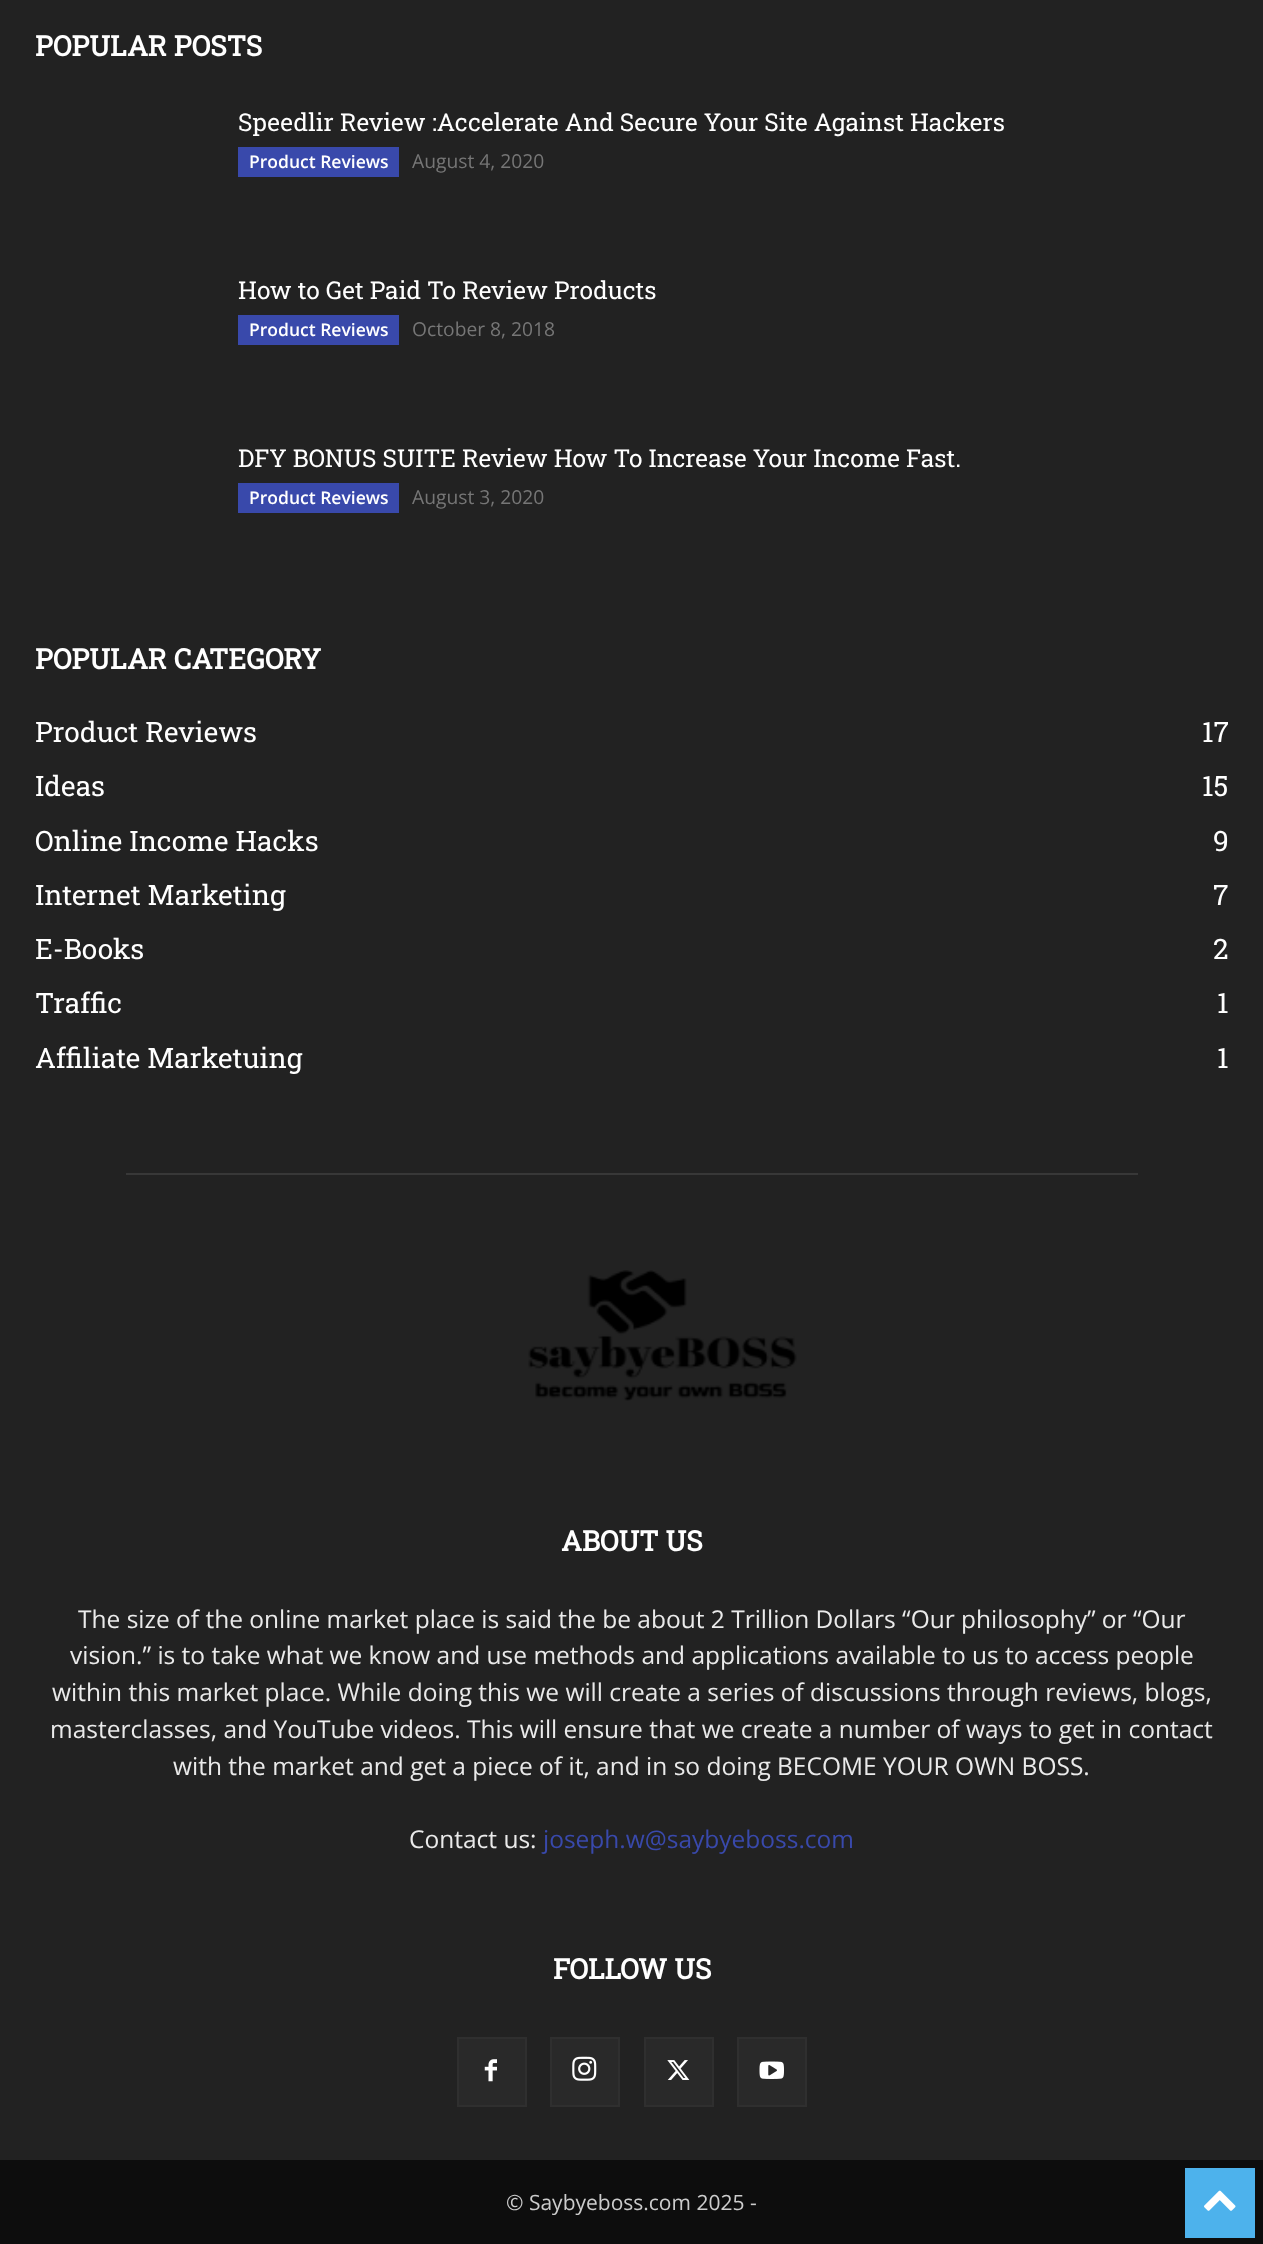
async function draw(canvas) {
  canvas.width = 1263
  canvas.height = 2244
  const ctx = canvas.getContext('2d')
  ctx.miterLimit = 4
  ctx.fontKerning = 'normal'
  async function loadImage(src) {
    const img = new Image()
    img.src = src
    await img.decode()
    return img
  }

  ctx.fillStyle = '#0d0d0d'
  ctx.fillRect(0, 0, 1263, 2244)
  ctx.fillStyle = '#222'
  ctx.fillRect(0, 0, 1263, 2160)
  ctx.font = 'bold 28px Roboto Slab'
  ctx.fillStyle = '#fff'
  ctx.fillText('POPULAR POSTS', 35, 56)
  ctx.font = '24.5px Roboto Slab'
  ctx.fillText('Speedlir Review :Accelerate And Secure Your Site Against Hackers', 238, 131)
  ctx.fillStyle = '#3949ab'
  ctx.fillRect(238, 147, 161, 30)
  ctx.font = '600 17.5px Open Sans'
  ctx.fillStyle = '#fff'
  ctx.fillText('Product Reviews', 249, 168)
  ctx.font = '19.25px Open Sans'
  ctx.fillStyle = '#767676'
  ctx.fillText('August 4, 2020', 412, 168)
  ctx.font = '24.5px Roboto Slab'
  ctx.fillStyle = '#fff'
  ctx.fillText('How to Get Paid To Review Products', 238, 299)
  ctx.fillStyle = '#3949ab'
  ctx.fillRect(238, 315, 161, 30)
  ctx.font = '600 17.5px Open Sans'
  ctx.fillStyle = '#fff'
  ctx.fillText('Product Reviews', 249, 336)
  ctx.font = '19.25px Open Sans'
  ctx.fillStyle = '#767676'
  ctx.fillText('October 8, 2018', 412, 336)
  ctx.font = '24.5px Roboto Slab'
  ctx.fillStyle = '#fff'
  ctx.fillText('DFY BONUS SUITE Review How To Increase Your Income Fast.', 238, 467)
  ctx.fillStyle = '#3949ab'
  ctx.fillRect(238, 483, 161, 30)
  ctx.font = '600 17.5px Open Sans'
  ctx.fillStyle = '#fff'
  ctx.fillText('Product Reviews', 249, 504)
  ctx.font = '19.25px Open Sans'
  ctx.fillStyle = '#767676'
  ctx.fillText('August 3, 2020', 412, 504)
  ctx.font = 'bold 28px Roboto Slab'
  ctx.fillStyle = '#fff'
  ctx.fillText('POPULAR CATEGORY', 35, 669)
  ctx.font = '28px Roboto Slab'
  ctx.fillText('Product Reviews', 35, 742)
  ctx.fillText('17', 1202, 742)
  ctx.fillText('Ideas', 35, 796)
  ctx.fillText('15', 1202, 796)
  ctx.fillText('Online Income Hacks', 35, 851)
  ctx.fillText('9', 1213, 851)
  ctx.fillText('Internet Marketing', 35, 905)
  ctx.fillText('7', 1213, 905)
  ctx.fillText('E-Books', 35, 959)
  ctx.fillText('2', 1213, 959)
  ctx.fillText('Traffic', 35, 1013)
  ctx.fillText('1', 1217, 1013)
  ctx.fillText('Affiliate Marketuing', 35, 1068)
  ctx.fillText('1', 1217, 1068)
  ctx.fillStyle = '#383838'
  ctx.fillRect(126, 1173, 1012, 2)
  ctx.drawImage(await loadImage('image0.png'), 528, 1270, 269, 131)
  ctx.font = 'bold 28px Roboto Slab'
  ctx.fillStyle = '#fff'
  ctx.fillText('ABOUT US', 561, 1551)
  ctx.font = '24.5px Open Sans'
  ctx.fillStyle = '#eaeaea'
  ctx.fillText('The size of the online market place is said the be about 2 Trillion Dollars “Our philosophy” or “Our', 78, 1628)
  ctx.fillText('vision.” is to take what we know and use methods and applications available to us to access people', 70, 1664)
  ctx.fillText('within this market place. While doing this we will create a series of discussions through reviews, blogs,', 52, 1701)
  ctx.fillText('masterclasses, and YouTube videos. This will ensure that we create a number of ways to get in contact', 50, 1738)
  ctx.fillText('with the market and get a piece of it, and in so doing BECOME YOUR OWN BOSS.', 173, 1775)
  ctx.fillText('Contact us:', 409, 1848)
  ctx.fillStyle = '#3949ab'
  ctx.fillText('joseph.w@saybyeboss.com', 543, 1848)
  ctx.font = 'bold 28px Roboto Slab'
  ctx.fillStyle = '#fff'
  ctx.fillText('FOLLOW US', 553, 1979)
  ctx.fillStyle = '#292929'
  ctx.fillRect(459, 2039, 66, 66)
  ctx.drawImage(await loadImage('image1.png'), 484, 2059, 13, 23)
  ctx.strokeStyle = '#2f2f2f'
  ctx.lineWidth = 2
  ctx.strokeRect(458, 2038, 68, 68)
  ctx.fillRect(552, 2039, 66, 66)
  ctx.drawImage(await loadImage('image2.png'), 572, 2056, 25, 25)
  ctx.strokeRect(551, 2038, 68, 68)
  ctx.fillRect(646, 2039, 66, 66)
  ctx.drawImage(await loadImage('image3.png'), 667, 2060, 23, 20)
  ctx.strokeRect(645, 2038, 68, 68)
  ctx.fillRect(739, 2039, 66, 66)
  ctx.drawImage(await loadImage('image4.png'), 759, 2061, 25, 18)
  ctx.strokeRect(738, 2038, 68, 68)
  ctx.font = '21px Open Sans'
  ctx.fillStyle = '#ccc'
  ctx.fillText('© Saybyeboss.com 2025 -', 506, 2210)
  ctx.fillStyle = '#4db2ec'
  ctx.fillRect(1185, 2168, 70, 70)
  ctx.drawImage(await loadImage('image5.png'), 1204, 2190, 32, 21)
}

draw(document.querySelector('canvas'))
